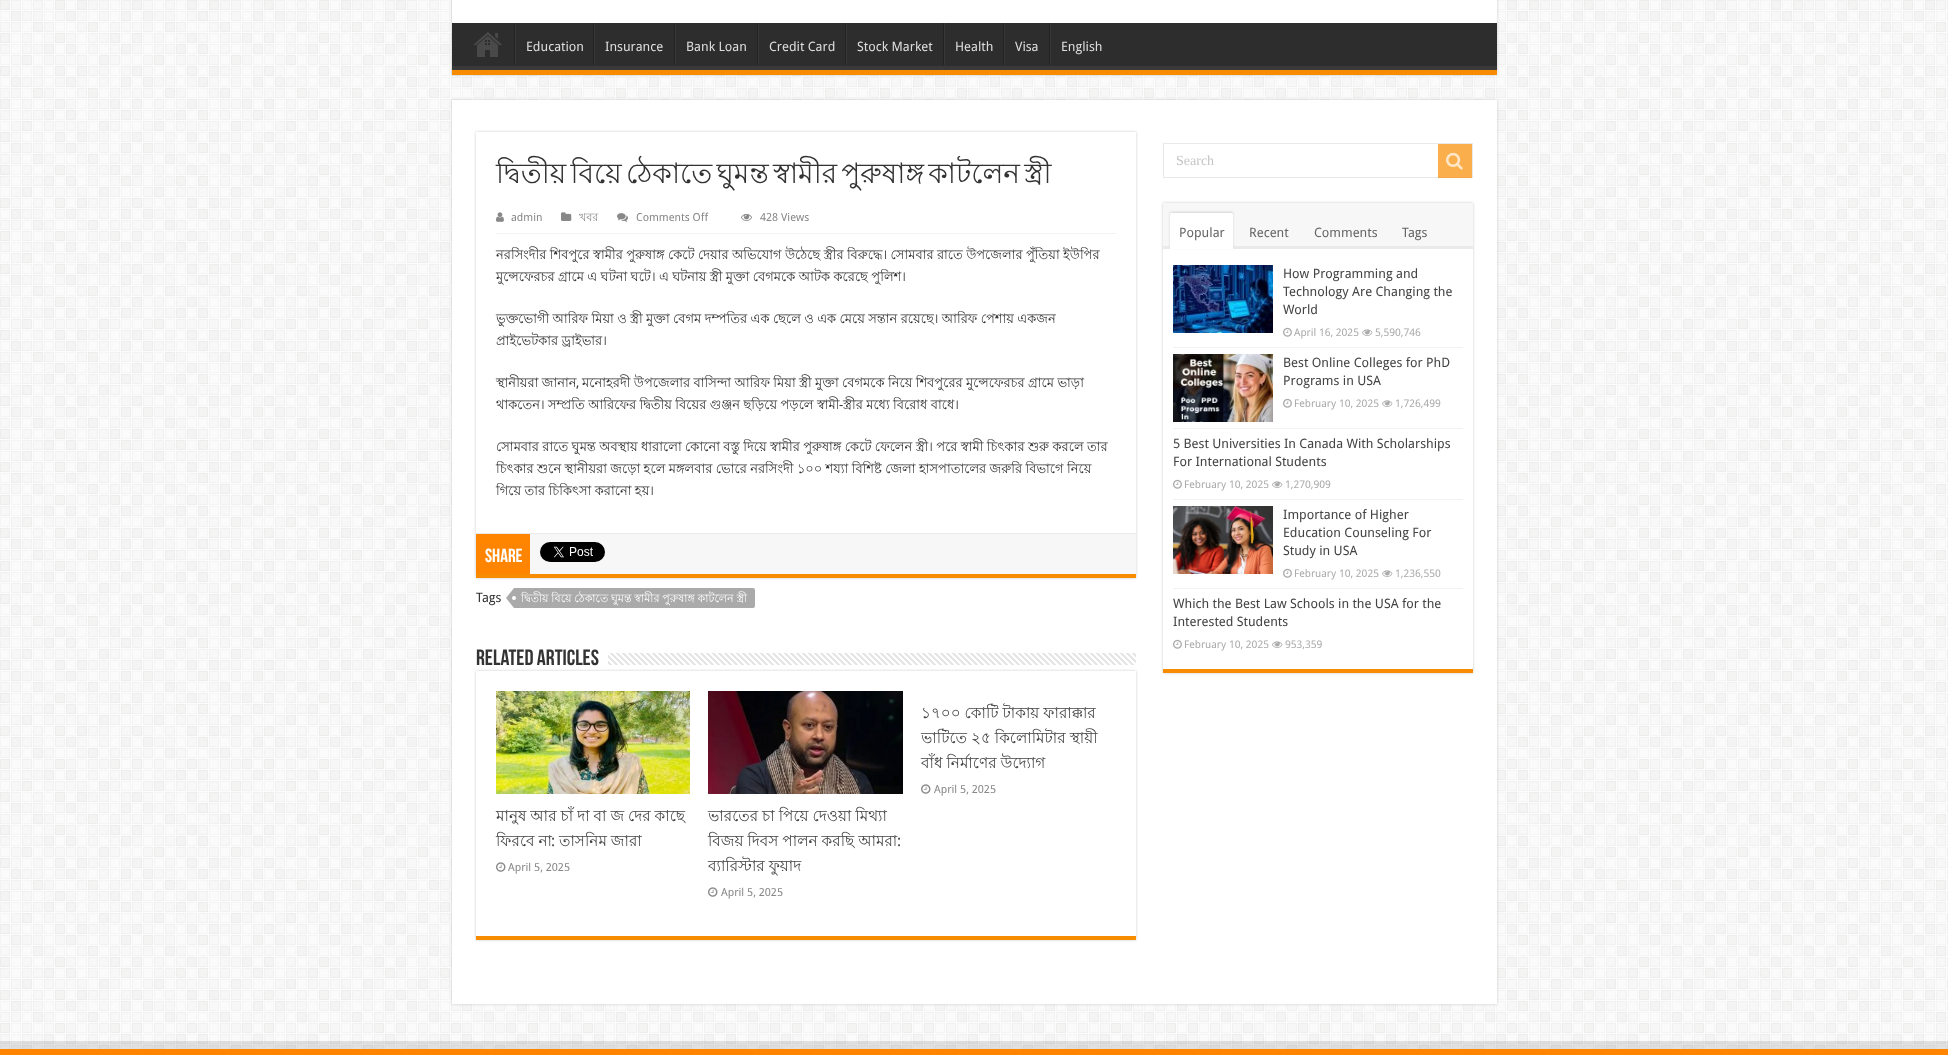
async function draw(canvas) {
  canvas.width = 1948
  canvas.height = 1055
  const ctx = canvas.getContext('2d')
  ctx.miterLimit = 4
  ctx.fontKerning = 'normal'
  async function loadImage(src) {
    const img = new Image()
    img.src = src
    await img.decode()
    return img
  }

  ctx.fillStyle = '#fff'
  ctx.fillRect(0, 0, 1948, 1055)
  ctx.drawImage(await loadImage('image0.png'), 0, 0, 1948, 1049)
  ctx.fillStyle = '#cacaca'
  ctx.filter = 'blur(1.5px)'
  ctx.beginPath()
  ctx.rect(452, -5, 1045, 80)
  ctx.fill()
  ctx.filter = 'none'
  ctx.fillStyle = '#fff'
  ctx.fillRect(452, 0, 1045, 23)
  ctx.fillStyle = '#2d2d2d'
  ctx.fillRect(452, 23, 1045, 43)
  ctx.save()
  ctx.beginPath()
  ctx.rect(452, 23, 1045, 47)
  ctx.clip()
  ctx.fillStyle = '#393939'
  ctx.beginPath()
  ctx.moveTo(353, -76)
  ctx.lineTo(1596, -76)
  ctx.lineTo(1596, 169)
  ctx.lineTo(353, 169)
  ctx.closePath()
  ctx.moveTo(451, 17)
  ctx.lineTo(1497, 17)
  ctx.lineTo(1497, 57)
  ctx.bezierCurveTo(1497, 58, 1498, 66, 1496, 66)
  ctx.lineTo(451, 66)
  ctx.lineTo(450, 65)
  ctx.lineTo(450, 17)
  ctx.closePath()
  ctx.fill('evenodd')
  ctx.restore()
  ctx.fillStyle = '#f88c00'
  ctx.fillRect(452, 70, 1045, 5)
  ctx.drawImage(await loadImage('image1.png'), 473, 32, 29, 25)
  ctx.fillStyle = '#222'
  ctx.fillRect(514, 23, 1, 42)
  ctx.fillStyle = '#383838'
  ctx.fillRect(515, 23, 1, 42)
  ctx.font = '13px Droid Sans'
  ctx.fillStyle = '#ddd'
  ctx.fillText('Education', 526, 51)
  ctx.fillStyle = '#222'
  ctx.fillRect(593, 23, 1, 42)
  ctx.fillStyle = '#383838'
  ctx.fillRect(594, 23, 1, 42)
  ctx.fillStyle = '#ddd'
  ctx.fillText('Insurance', 605, 51)
  ctx.fillStyle = '#222'
  ctx.fillRect(674, 23, 1, 42)
  ctx.fillStyle = '#383838'
  ctx.fillRect(675, 23, 1, 42)
  ctx.fillStyle = '#ddd'
  ctx.fillText('Bank Loan', 686, 51)
  ctx.fillStyle = '#222'
  ctx.fillRect(757, 23, 1, 42)
  ctx.fillStyle = '#383838'
  ctx.fillRect(758, 23, 1, 42)
  ctx.fillStyle = '#ddd'
  ctx.fillText('Credit Card', 769, 51)
  ctx.fillStyle = '#222'
  ctx.fillRect(845, 23, 1, 42)
  ctx.fillStyle = '#383838'
  ctx.fillRect(846, 23, 1, 42)
  ctx.fillStyle = '#ddd'
  ctx.fillText('Stock Market', 857, 51)
  ctx.fillStyle = '#222'
  ctx.fillRect(943, 23, 1, 42)
  ctx.fillStyle = '#383838'
  ctx.fillRect(944, 23, 1, 42)
  ctx.fillStyle = '#ddd'
  ctx.fillText('Health', 955, 51)
  ctx.fillStyle = '#222'
  ctx.fillRect(1003, 23, 1, 42)
  ctx.fillStyle = '#383838'
  ctx.fillRect(1004, 23, 1, 42)
  ctx.fillStyle = '#ddd'
  ctx.fillText('Visa', 1015, 51)
  ctx.fillStyle = '#222'
  ctx.fillRect(1049, 23, 1, 42)
  ctx.fillStyle = '#383838'
  ctx.fillRect(1050, 23, 1, 42)
  ctx.fillStyle = '#ddd'
  ctx.fillText('English', 1061, 51)
  ctx.fillStyle = '#cacaca'
  ctx.filter = 'blur(1.5px)'
  ctx.beginPath()
  ctx.rect(452, 100, 1045, 904)
  ctx.fill()
  ctx.filter = 'none'
  ctx.fillStyle = '#fff'
  ctx.fillRect(452, 100, 1045, 904)
  ctx.save()
  ctx.beginPath()
  ctx.moveTo(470, 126)
  ctx.lineTo(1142, 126)
  ctx.lineTo(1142, 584)
  ctx.lineTo(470, 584)
  ctx.closePath()
  ctx.moveTo(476, 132)
  ctx.lineTo(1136, 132)
  ctx.lineTo(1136, 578)
  ctx.lineTo(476, 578)
  ctx.closePath()
  ctx.clip('evenodd')
  ctx.fillStyle = '#cacaca'
  ctx.filter = 'blur(1.5px)'
  ctx.beginPath()
  ctx.rect(476, 132, 660, 446)
  ctx.fill()
  ctx.filter = 'none'
  ctx.restore()
  ctx.fillStyle = '#f88c00'
  ctx.fillRect(476, 574, 660, 4)
  ctx.wordSpacing = '-3.5px'
  ctx.font = '28px Lohit Bengali'
  ctx.fillStyle = '#333'
  ctx.fillText('দ্বিতীয় বিয়ে ঠেকাতে ঘুমন্ত স্বামীর পুরুষাঙ্গ কাটলেন স্ত্রী', 496, 183)
  ctx.fillStyle = '#f2f2f2'
  ctx.fillRect(496, 233, 620, 1)
  ctx.drawImage(await loadImage('image2.png'), 496, 212, 8, 10)
  ctx.wordSpacing = '0px'
  ctx.font = '11px Droid Sans'
  ctx.fillStyle = '#888'
  ctx.fillText('admin', 511, 221)
  ctx.drawImage(await loadImage('image3.png'), 561, 212, 11, 9)
  ctx.font = '11px Lohit Bengali'
  ctx.fillText('খবর', 579, 221)
  ctx.drawImage(await loadImage('image4.png'), 617, 213, 11, 9)
  ctx.font = '11px Droid Sans'
  ctx.fillText('Comments Off', 636, 221)
  ctx.drawImage(await loadImage('image5.png'), 741, 213, 11, 8)
  ctx.fillText('428 Views', 760, 221)
  ctx.wordSpacing = '-0.25px'
  ctx.font = '13px Lohit Bengali'
  ctx.fillStyle = '#333'
  ctx.fillText('নরসিংদীর শিবপুরে স্বামীর পুরুষাঙ্গ কেটে দেয়ার অভিযোগ উঠেছে স্ত্রীর বিরুদ্ধে। সোমবার রাতে উপজেলার পুঁতিয়া ইউপির', 496, 259)
  ctx.fillText('মুন্সেফেরচর গ্রামে এ ঘটনা ঘটে। এ ঘটনায় স্ত্রী মুক্তা বেগমকে আটক করেছে পুলিশ।', 496, 281)
  ctx.fillText('ভুক্তভোগী আরিফ মিয়া ও স্ত্রী মুক্তা বেগম দম্পতির এক ছেলে ও এক মেয়ে সন্তান রয়েছে। আরিফ পেশায় একজন', 496, 323)
  ctx.fillText('প্রাইভেটকার ড্রাইভার।', 496, 345)
  ctx.fillText('স্থানীয়রা জানান', 496, 387)
  ctx.wordSpacing = '0px'
  ctx.font = '13px Droid Sans'
  ctx.fillText(',', 576, 387)
  ctx.wordSpacing = '-0.25px'
  ctx.font = '13px Lohit Bengali'
  ctx.fillText('মনোহরদী উপজেলার বাসিন্দা আরিফ মিয়া স্ত্রী মুক্তা বেগমকে নিয়ে শিবপুরের মুন্সেফেরচর গ্রামে ভাড়া', 582, 387)
  ctx.fillText('থাকতেন। সম্প্রতি আরিফের দ্বিতীয় বিয়ের গুঞ্জন ছড়িয়ে পড়লে স্বামী', 496, 409)
  ctx.wordSpacing = '0px'
  ctx.font = '13px Droid Sans'
  ctx.fillText('-', 839, 409)
  ctx.wordSpacing = '-0.25px'
  ctx.font = '13px Lohit Bengali'
  ctx.fillText('স্ত্রীর মধ্যে বিরোধ বাধে।', 843, 409)
  ctx.fillText('সোমবার রাতে ঘুমন্ত অবস্থায় ধারালো কোনো বস্তু দিয়ে স্বামীর পুরুষাঙ্গ কেটে ফেলেন স্ত্রী। পরে স্বামী চিৎকার শুরু করলে তার', 496, 451)
  ctx.fillText('চিৎকার শুনে স্থানীয়রা জড়ো হলে মঙ্গলবার ভোরে নরসিংদী ১০০ শয্যা বিশিষ্ট জেলা হাসপাতালের জরুরি বিভাগে নিয়ে', 496, 473)
  ctx.fillText('গিয়ে তার চিকিৎসা করানো হয়।', 496, 495)
  ctx.fillStyle = '#f7f7f7'
  ctx.fillRect(530, 534, 606, 40)
  ctx.fillStyle = '#eaeaea'
  ctx.fillRect(476, 533, 660, 1)
  ctx.fillStyle = '#ff8500'
  ctx.fillRect(476, 534, 54, 40)
  ctx.wordSpacing = '0px'
  ctx.font = 'bold 19px Bebas Neue'
  ctx.fillStyle = '#fff'
  ctx.fillText('Share', 485, 562)
  ctx.drawImage(await loadImage('image6.png'), 540, 542, 65, 20)
  ctx.font = '13px Droid Sans'
  ctx.fillStyle = '#333'
  ctx.fillText('Tags', 476, 602)
  ctx.fillStyle = '#aaa'
  ctx.beginPath()
  ctx.roundRect(514, 588, 241, 20, [0, 2, 2, 0])
  ctx.fill()
  ctx.beginPath()
  ctx.moveTo(514, 588)
  ctx.lineTo(514, 608)
  ctx.lineTo(506, 598)
  ctx.closePath()
  ctx.fill()
  ctx.wordSpacing = '-0.25px'
  ctx.font = '11px Lohit Bengali'
  ctx.fillStyle = '#fff'
  ctx.fillText('দ্বিতীয় বিয়ে ঠেকাতে ঘুমন্ত স্বামীর পুরুষাঙ্গ কাটলেন স্ত্রী', 521, 602)
  ctx.beginPath()
  ctx.arc(514, 598, 2, 0, 2 * Math.PI)
  ctx.fill()
  ctx.save()
  ctx.beginPath()
  ctx.moveTo(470, 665)
  ctx.lineTo(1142, 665)
  ctx.lineTo(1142, 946)
  ctx.lineTo(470, 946)
  ctx.closePath()
  ctx.moveTo(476, 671)
  ctx.lineTo(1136, 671)
  ctx.lineTo(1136, 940)
  ctx.lineTo(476, 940)
  ctx.closePath()
  ctx.clip('evenodd')
  ctx.fillStyle = '#cacaca'
  ctx.filter = 'blur(1.5px)'
  ctx.beginPath()
  ctx.rect(476, 671, 660, 269)
  ctx.fill()
  ctx.filter = 'none'
  ctx.restore()
  ctx.wordSpacing = '0px'
  ctx.font = 'bold 22px Bebas Neue'
  ctx.fillStyle = '#333'
  ctx.fillText('Related Articles', 476, 665)
  ctx.drawImage(await loadImage('image7.png'), 608, 653, 528, 12)
  ctx.fillStyle = '#f88c00'
  ctx.fillRect(476, 936, 660, 4)
  ctx.wordSpacing = '-0.25px'
  ctx.font = '15.25px Lohit Bengali'
  ctx.fillStyle = '#444'
  ctx.fillText('১৭০০ কোটি টাকায় ফারাক্কার', 921, 718)
  ctx.fillText('ভাটিতে ২৫ কিলোমিটার স্থায়ী', 921, 743)
  ctx.fillText('বাঁধ নির্মাণের উদ্যোগ', 921, 768)
  ctx.drawImage(await loadImage('image8.png'), 921, 784, 10, 10)
  ctx.wordSpacing = '0px'
  ctx.font = '11px Droid Sans'
  ctx.fillStyle = '#888'
  ctx.fillText('April 5, 2025', 934, 793)
  ctx.drawImage(await loadImage('image9.png'), 496, 691, 194, 103)
  ctx.wordSpacing = '-0.25px'
  ctx.font = '15.25px Lohit Bengali'
  ctx.fillStyle = '#444'
  ctx.fillText('মানুষ আর চাঁ দা বা জ দের কাছে', 496, 821)
  ctx.fillText('ফিরবে না', 496, 846)
  ctx.wordSpacing = '0px'
  ctx.font = '15.25px Droid Sans'
  ctx.fillText(':', 551, 846)
  ctx.wordSpacing = '-0.25px'
  ctx.font = '15.25px Lohit Bengali'
  ctx.fillText('তাসনিম জারা', 559, 846)
  ctx.drawImage(await loadImage('image8.png'), 496, 862, 10, 10)
  ctx.wordSpacing = '0px'
  ctx.font = '11px Droid Sans'
  ctx.fillStyle = '#888'
  ctx.fillText('April 5, 2025', 508, 871)
  ctx.drawImage(await loadImage('image10.png'), 708, 691, 195, 103)
  ctx.wordSpacing = '-0.25px'
  ctx.font = '15.25px Lohit Bengali'
  ctx.fillStyle = '#444'
  ctx.fillText('ভারতের চা পিয়ে দেওয়া মিথ্যা', 708, 821)
  ctx.fillText('বিজয় দিবস পালন করছি আমরা', 708, 846)
  ctx.wordSpacing = '0px'
  ctx.font = '15.25px Droid Sans'
  ctx.fillText(':', 897, 846)
  ctx.wordSpacing = '-0.25px'
  ctx.font = '15.25px Lohit Bengali'
  ctx.fillText('ব্যারিস্টার ফুয়াদ', 708, 871)
  ctx.drawImage(await loadImage('image8.png'), 708, 887, 10, 10)
  ctx.wordSpacing = '0px'
  ctx.font = '11px Droid Sans'
  ctx.fillStyle = '#888'
  ctx.fillText('April 5, 2025', 721, 896)
  ctx.strokeStyle = '#e8e8e8'
  ctx.strokeRect(1163.5, 143.5, 309, 34)
  ctx.font = '14px Liberation Serif'
  ctx.fillStyle = '#c5c5c5'
  ctx.fillText('Search', 1176, 165)
  ctx.fillStyle = '#f88c00b3'
  ctx.fillRect(1438, 144, 34, 34)
  ctx.drawImage(await loadImage('image11.png'), 1446, 152, 17, 18)
  ctx.save()
  ctx.beginPath()
  ctx.moveTo(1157, 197)
  ctx.lineTo(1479, 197)
  ctx.lineTo(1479, 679)
  ctx.lineTo(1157, 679)
  ctx.closePath()
  ctx.moveTo(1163, 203)
  ctx.lineTo(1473, 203)
  ctx.lineTo(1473, 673)
  ctx.lineTo(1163, 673)
  ctx.closePath()
  ctx.clip('evenodd')
  ctx.fillStyle = '#cacaca'
  ctx.filter = 'blur(1.5px)'
  ctx.beginPath()
  ctx.rect(1163, 203, 310, 470)
  ctx.fill()
  ctx.filter = 'none'
  ctx.restore()
  ctx.fillStyle = '#f88c00'
  ctx.fillRect(1163, 669, 310, 4)
  ctx.fillStyle = '#f7f7f7'
  ctx.fillRect(1163, 203, 310, 43)
  ctx.fillStyle = '#eaeaea'
  ctx.fillRect(1163, 246, 310, 3)
  ctx.fillStyle = '#d4d4d4'
  ctx.filter = 'blur(1px)'
  ctx.beginPath()
  ctx.roundRect(1170, 212, 63, 36, 2)
  ctx.fill()
  ctx.filter = 'none'
  ctx.fillStyle = '#fff'
  ctx.beginPath()
  ctx.roundRect(1170, 213, 63, 36, [2, 2, 0, 0])
  ctx.fill()
  ctx.font = '13px Droid Sans'
  ctx.fillStyle = '#666'
  ctx.fillText('Popular', 1179, 237)
  ctx.fillText('Recent', 1249, 237)
  ctx.fillText('Comments', 1314, 237)
  ctx.fillText('Tags', 1402, 237)
  ctx.fillStyle = '#f2f2f2'
  ctx.fillRect(1173, 347, 290, 1)
  ctx.drawImage(await loadImage('image12.png'), 1173, 265, 100, 68)
  ctx.fillStyle = '#444'
  ctx.fillText('How Programming and', 1283, 278)
  ctx.fillText('Technology Are Changing the', 1283, 296)
  ctx.fillText('World', 1283, 314)
  ctx.drawImage(await loadImage('image13.png'), 1283, 327, 9, 10)
  ctx.font = '10.5px Droid Sans'
  ctx.fillStyle = '#aaa'
  ctx.fillText('April 16, 2025', 1294, 336)
  ctx.drawImage(await loadImage('image14.png'), 1362, 329, 11, 7)
  ctx.fillText('5,590,746', 1375, 336)
  ctx.fillStyle = '#f2f2f2'
  ctx.fillRect(1173, 428, 290, 1)
  ctx.drawImage(await loadImage('image15.png'), 1173, 354, 100, 68)
  ctx.font = '13px Droid Sans'
  ctx.fillStyle = '#444'
  ctx.fillText('Best Online Colleges for PhD', 1283, 367)
  ctx.fillText('Programs in USA', 1283, 385)
  ctx.drawImage(await loadImage('image13.png'), 1283, 398, 9, 10)
  ctx.font = '10.5px Droid Sans'
  ctx.fillStyle = '#aaa'
  ctx.fillText('February 10, 2025', 1294, 407)
  ctx.drawImage(await loadImage('image14.png'), 1382, 400, 11, 7)
  ctx.fillText('1,726,499', 1395, 407)
  ctx.fillStyle = '#f2f2f2'
  ctx.fillRect(1173, 499, 290, 1)
  ctx.font = '13px Droid Sans'
  ctx.fillStyle = '#444'
  ctx.fillText('5 Best Universities In Canada With Scholarships', 1173, 448)
  ctx.fillText('For International Students', 1173, 466)
  ctx.drawImage(await loadImage('image13.png'), 1173, 479, 9, 10)
  ctx.font = '10.5px Droid Sans'
  ctx.fillStyle = '#aaa'
  ctx.fillText('February 10, 2025', 1184, 488)
  ctx.drawImage(await loadImage('image14.png'), 1272, 481, 11, 7)
  ctx.fillText('1,270,909', 1285, 488)
  ctx.fillStyle = '#f2f2f2'
  ctx.fillRect(1173, 588, 290, 1)
  ctx.drawImage(await loadImage('image16.png'), 1173, 506, 100, 68)
  ctx.font = '13px Droid Sans'
  ctx.fillStyle = '#444'
  ctx.fillText('Importance of Higher', 1283, 519)
  ctx.fillText('Education Counseling For', 1283, 537)
  ctx.fillText('Study in USA', 1283, 555)
  ctx.drawImage(await loadImage('image13.png'), 1283, 568, 9, 10)
  ctx.font = '10.5px Droid Sans'
  ctx.fillStyle = '#aaa'
  ctx.fillText('February 10, 2025', 1294, 577)
  ctx.drawImage(await loadImage('image14.png'), 1382, 570, 11, 7)
  ctx.fillText('1,236,550', 1395, 577)
  ctx.font = '13px Droid Sans'
  ctx.fillStyle = '#444'
  ctx.fillText('Which the Best Law Schools in the USA for the', 1173, 608)
  ctx.fillText('Interested Students', 1173, 626)
  ctx.drawImage(await loadImage('image13.png'), 1173, 639, 9, 10)
  ctx.font = '10.5px Droid Sans'
  ctx.fillStyle = '#aaa'
  ctx.fillText('February 10, 2025', 1184, 648)
  ctx.drawImage(await loadImage('image14.png'), 1272, 641, 11, 7)
  ctx.fillText('953,359', 1285, 648)
  ctx.fillStyle = '#0000001a'
  ctx.fillRect(0, 1041, 1948, 8)
  ctx.fillStyle = '#ff8500'
  ctx.fillRect(0, 1049, 1948, 6)
}

draw(document.querySelector('canvas'))
